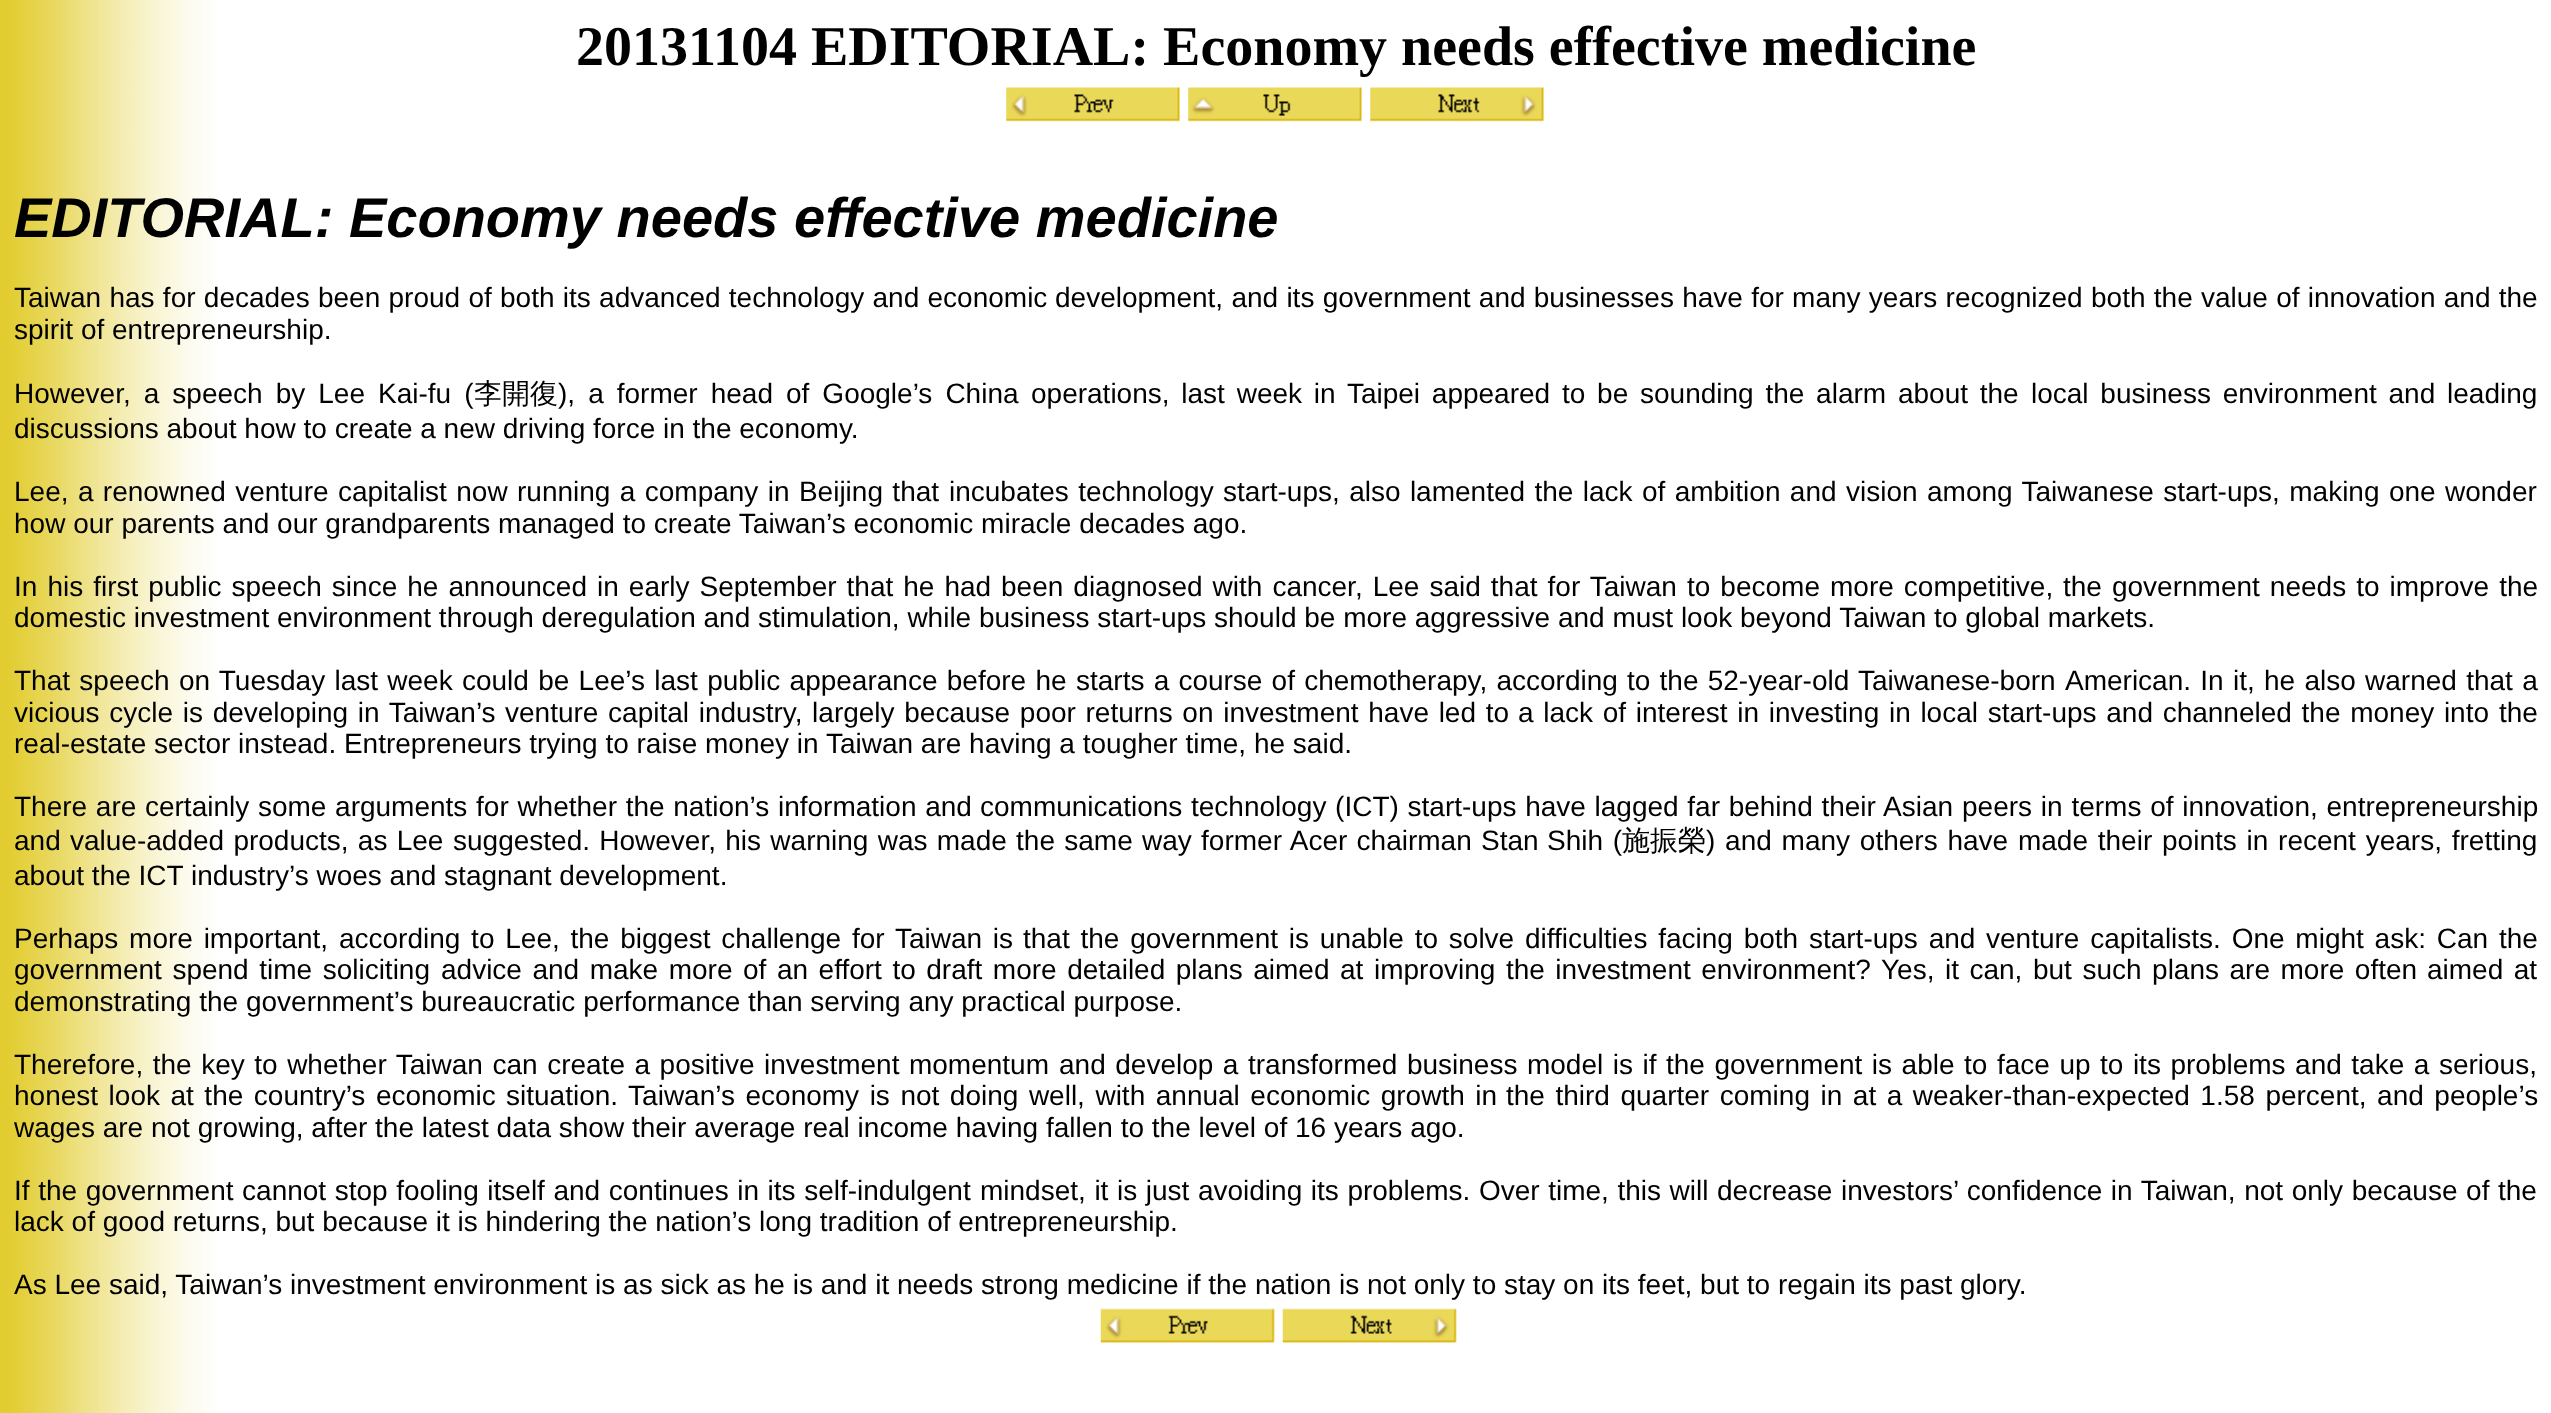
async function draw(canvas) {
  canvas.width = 2551
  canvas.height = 1413
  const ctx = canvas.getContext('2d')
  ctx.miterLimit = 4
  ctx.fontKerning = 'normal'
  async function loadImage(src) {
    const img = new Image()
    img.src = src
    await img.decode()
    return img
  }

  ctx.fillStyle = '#fff'
  ctx.fillRect(0, 0, 2551, 1413)
  ctx.drawImage(await loadImage('image0.png'), 0, 0, 217, 1413)
  ctx.font = 'bold 56px Liberation Serif'
  ctx.fillStyle = '#000'
  ctx.fillText('20131104 EDITORIAL: Economy needs effective medicine', 576, 65)
  ctx.drawImage(await loadImage('image1.png'), 1006, 87, 174, 35)
  ctx.drawImage(await loadImage('image2.png'), 1188, 87, 174, 35)
  ctx.drawImage(await loadImage('image3.png'), 1370, 87, 174, 35)
  ctx.font = 'italic bold 56px Liberation Sans'
  ctx.fillText('EDITORIAL: Economy needs effective medicine', 14, 237)
  ctx.wordSpacing = '0.5px'
  ctx.font = '28px Liberation Sans'
  ctx.fillText('Taiwan has for decades been proud of both its advanced technology and economic', 14, 307)
  ctx.fillText('development, and its government and businesses have for many years recognized', 1055, 307)
  ctx.fillText('both the value of innovation and the', 2091, 307)
  ctx.wordSpacing = '0px'
  ctx.fillText('spirit of entrepreneurship.', 14, 339)
  ctx.wordSpacing = '5.25px'
  ctx.fillText('However, a speech by Lee Kai-fu (', 14, 403)
  ctx.wordSpacing = '0px'
  ctx.font = '500 28px WenQuanYi Zen Hei'
  ctx.fillText('李開復', 474, 403)
  ctx.wordSpacing = '5.25px'
  ctx.font = '28px Liberation Sans'
  ctx.fillText('), a former head of Google’s China', 558, 403)
  ctx.wordSpacing = '4px'
  ctx.fillText('operations, last week in Taipei appeared to be sounding the alarm about the', 1031, 403)
  ctx.fillText('local business environment and leading', 2031, 403)
  ctx.wordSpacing = '0px'
  ctx.fillText('discussions about how to create a new driving force in the economy.', 14, 438)
  ctx.wordSpacing = '1.6px'
  ctx.fillText('Lee, a renowned venture capitalist now running a company in Beijing that', 14, 501)
  ctx.fillText('incubates technology start-ups, also lamented the lack of ambition and vision', 949, 501)
  ctx.fillText('among Taiwanese start-ups, making one wonder', 1927, 501)
  ctx.wordSpacing = '0px'
  ctx.fillText('how our parents and our grandparents managed to create Taiwan’s economic miracle decades ago.', 14, 533)
  ctx.wordSpacing = '2.25px'
  ctx.fillText('In his first public speech since he announced in early September that he had', 14, 596)
  ctx.fillText('been diagnosed with cancer, Lee said that for Taiwan to become more competitive,', 1001, 596)
  ctx.fillText('the government needs to improve the', 2063, 596)
  ctx.wordSpacing = '0px'
  ctx.fillText('domestic investment environment through deregulation and stimulation, while business start-ups should be more aggressive and must look beyond Taiwan to global markets.', 14, 627)
  ctx.wordSpacing = '1.5px'
  ctx.fillText('That speech on Tuesday last week could be Lee’s last public appearance before he', 14, 690)
  ctx.wordSpacing = '1.4px'
  ctx.fillText('starts a course of chemotherapy, according to the 52-year-old Taiwanese-born', 1076, 690)
  ctx.wordSpacing = '1.5px'
  ctx.fillText('American. In it, he also warned that a', 2065, 690)
  ctx.wordSpacing = '1.9px'
  ctx.fillText('vicious cycle is developing in Taiwan’s', 14, 722)
  ctx.fillText('venture capital industry, largely because poor returns on investment have led to', 505, 722)
  ctx.fillText('a lack of interest in investing in local start-ups and channeled the money into', 1518, 722)
  ctx.wordSpacing = '0px'
  ctx.fillText('the', 2499, 722)
  ctx.fillText('real-estate sector instead. Entrepreneurs trying to raise money in Taiwan are having a tougher time, he said.', 14, 753)
  ctx.wordSpacing = '0.9px'
  ctx.fillText('There are certainly some arguments for whether the nation’s information and', 14, 816)
  ctx.fillText('communications technology (ICT) start-ups have lagged far behind their Asian', 980, 816)
  ctx.wordSpacing = '1px'
  ctx.fillText('peers in terms of innovation, entrepreneurship', 1962, 816)
  ctx.wordSpacing = '1.5px'
  ctx.fillText('and value-added products, as Lee', 14, 850)
  ctx.fillText('suggested. However, his warning was made the same way former Acer chairman Stan', 453, 850)
  ctx.wordSpacing = '2px'
  ctx.fillText('Shih (', 1547, 850)
  ctx.wordSpacing = '0px'
  ctx.font = '500 28px WenQuanYi Zen Hei'
  ctx.fillText('施振榮', 1622, 850)
  ctx.wordSpacing = '2px'
  ctx.font = '28px Liberation Sans'
  ctx.fillText(') and many others have made their points in recent years, fretting', 1706, 850)
  ctx.wordSpacing = '0px'
  ctx.fillText('about the ICT industry’s woes and stagnant development.', 14, 885)
  ctx.wordSpacing = '3px'
  ctx.fillText('Perhaps more important, according to Lee, the biggest challenge for Taiwan is', 14, 948)
  ctx.fillText('that the government is unable to solve difficulties facing both start-ups and', 1023, 948)
  ctx.fillText('venture capitalists. One might ask: Can the', 1986, 948)
  ctx.wordSpacing = '2.75px'
  ctx.fillText('government spend time soliciting', 14, 979)
  ctx.fillText('advice and make more of an effort to draft more detailed plans aimed at', 441, 979)
  ctx.fillText('improving the investment environment? Yes, it can, but such plans are more often', 1374, 979)
  ctx.fillText('aimed at', 2427, 979)
  ctx.wordSpacing = '0px'
  ctx.fillText('demonstrating the government’s bureaucratic performance than serving any practical purpose.', 14, 1011)
  ctx.wordSpacing = '1.75px'
  ctx.fillText('Therefore, the key to whether Taiwan can create a positive investment momentum', 14, 1074)
  ctx.fillText('and develop a transformed business model is if the government is able to face up', 1059, 1074)
  ctx.fillText('to its problems and take a serious,', 2100, 1074)
  ctx.wordSpacing = '2.75px'
  ctx.fillText('honest look at the country’s economic', 14, 1105)
  ctx.fillText('situation. Taiwan’s economy is not doing well, with annual economic growth in', 506, 1105)
  ctx.fillText('the third quarter coming in at a weaker-than-expected 1.58 percent, and people’s', 1506, 1105)
  ctx.wordSpacing = '0px'
  ctx.fillText('wages are not growing, after the latest data show their average real income having fallen to the level of 16 years ago.', 14, 1137)
  ctx.wordSpacing = '0.8px'
  ctx.fillText('If the government cannot stop fooling itself and continues in its self-indulgent', 14, 1200)
  ctx.fillText('mindset, it is just avoiding its problems. Over time, this will decrease', 980, 1200)
  ctx.fillText('investors’ confidence in Taiwan, not only because of the', 1841, 1200)
  ctx.wordSpacing = '0px'
  ctx.fillText('lack of good returns, but because it is hindering the nation’s long tradition of entrepreneurship.', 14, 1231)
  ctx.fillText('As Lee said, Taiwan’s investment environment is as sick as he is and it needs strong medicine if the nation is not only to stay on its feet, but to regain its past glory.', 14, 1294)
  ctx.drawImage(await loadImage('image4.png'), 1100, 1308, 175, 35)
  ctx.drawImage(await loadImage('image5.png'), 1282, 1308, 175, 35)
}

draw(document.querySelector('canvas'))
